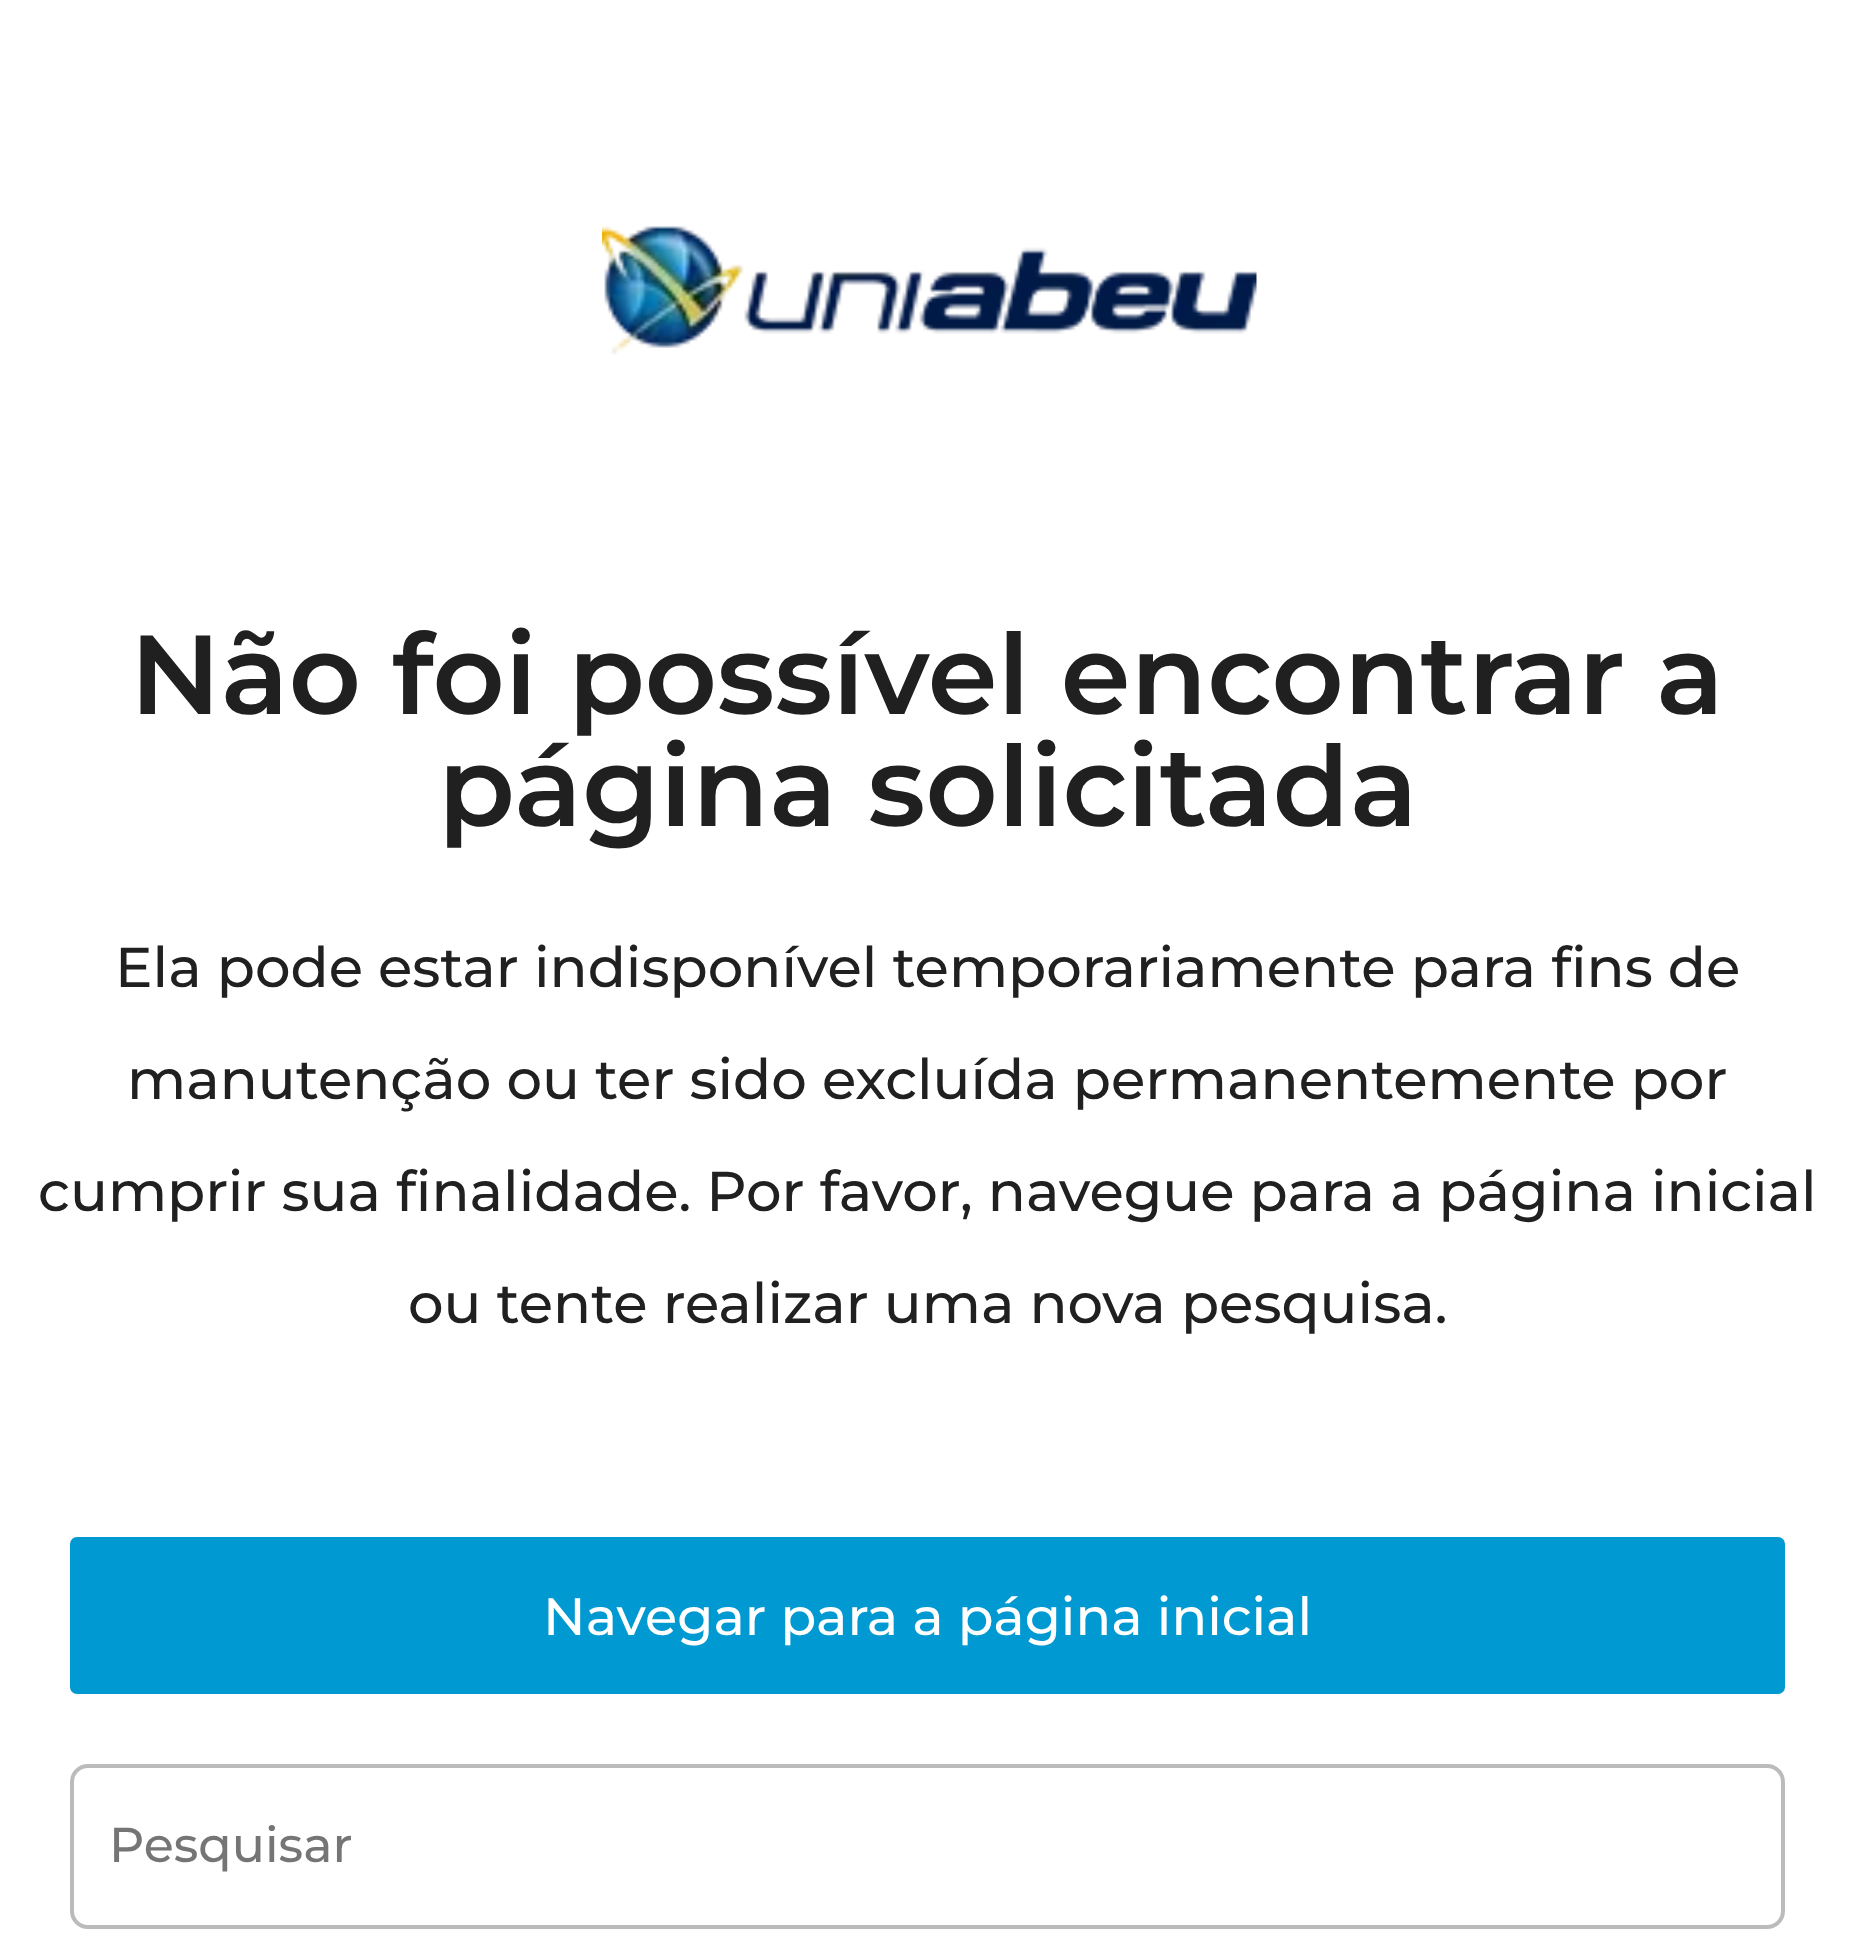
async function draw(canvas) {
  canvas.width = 1853
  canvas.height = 1951
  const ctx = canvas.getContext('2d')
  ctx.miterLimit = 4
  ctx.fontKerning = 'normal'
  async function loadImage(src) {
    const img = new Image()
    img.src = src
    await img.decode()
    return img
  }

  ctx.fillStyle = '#fff'
  ctx.fillRect(0, 0, 1853, 1951)
  ctx.drawImage(await loadImage('image0.png'), 602, 226, 655, 129)
  ctx.font = '600 112px Montserrat'
  ctx.fillStyle = '#202020'
  ctx.fillText('Não foi possível encontrar a', 130, 714)
  ctx.fillText('página solicitada', 438, 826)
  ctx.font = '500 56px Montserrat'
  ctx.fillText('Ela pode estar indisponível temporariamente para fins de', 115, 987)
  ctx.fillText('manutenção ou ter sido excluída permanentemente por', 127, 1099)
  ctx.fillText('cumprir sua finalidade. Por favor, navegue para a página inicial', 38, 1211)
  ctx.fillText('ou tente realizar uma nova pesquisa.', 408, 1323)
  ctx.fillStyle = '#0099d1'
  ctx.beginPath()
  ctx.roundRect(70, 1537, 1715, 157, 7)
  ctx.fill()
  ctx.font = '500 52.5px Montserrat'
  ctx.fillStyle = '#fff'
  ctx.fillText('Navegar para a página inicial', 543, 1635)
  ctx.beginPath()
  ctx.roundRect(72, 1766, 1711, 161, 16)
  ctx.strokeStyle = '#bbb'
  ctx.lineWidth = 4
  ctx.stroke()
  ctx.font = '500 49px Montserrat'
  ctx.fillStyle = '#757575'
  ctx.fillText('Pesquisar', 109, 1862)
}

draw(document.querySelector('canvas'))
